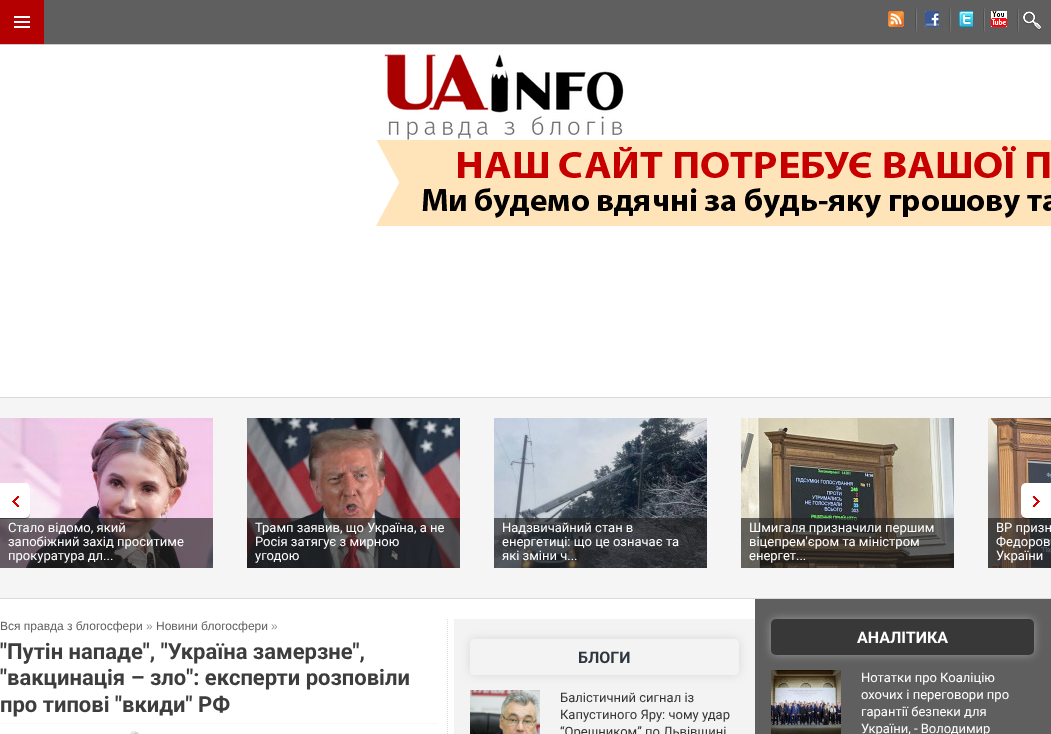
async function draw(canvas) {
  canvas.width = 1051
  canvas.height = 734
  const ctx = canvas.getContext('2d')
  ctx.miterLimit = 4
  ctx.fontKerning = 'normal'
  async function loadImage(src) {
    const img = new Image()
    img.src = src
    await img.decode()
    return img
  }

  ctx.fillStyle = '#fff'
  ctx.fillRect(0, 0, 1051, 734)
  ctx.fillStyle = '#ccc'
  ctx.fillRect(0, 44, 1051, 1)
  ctx.fillStyle = '#5f5f5f'
  ctx.fillRect(44, 0, 1007, 44)
  ctx.fillStyle = '#b40000'
  ctx.fillRect(0, 0, 44, 44)
  ctx.drawImage(await loadImage('image0.png'), 14, 16, 16, 12)
  ctx.drawImage(await loadImage('image1.png'), 888, 11, 16, 16)
  ctx.drawImage(await loadImage('image2.png'), 915, 7, 2, 26)
  ctx.drawImage(await loadImage('image3.png'), 925, 11, 14, 16)
  ctx.drawImage(await loadImage('image2.png'), 949, 7, 2, 26)
  ctx.drawImage(await loadImage('image4.png'), 959, 11, 14, 16)
  ctx.drawImage(await loadImage('image2.png'), 983, 7, 2, 26)
  ctx.drawImage(await loadImage('image5.png'), 991, 11, 16, 16)
  ctx.drawImage(await loadImage('image2.png'), 1017, 7, 2, 26)
  ctx.drawImage(await loadImage('image6.png'), 1022, 11, 19, 19)
  ctx.drawImage(await loadImage('image7.png'), 384, 54, 241, 86)
  ctx.drawImage(await loadImage('image8.png'), 376, 140, 675, 86)
  ctx.fillStyle = '#f5f5f5'
  ctx.fillRect(0, 398, 1051, 200)
  ctx.fillStyle = '#d9d9d9'
  ctx.fillRect(0, 397, 1051, 1)
  ctx.fillRect(0, 598, 1051, 1)
  ctx.drawImage(await loadImage('image11.png'), 0, 418, 213, 150)
  ctx.fillStyle = '#1e1e1ea6'
  ctx.fillRect(0, 518, 213, 50)
  ctx.fillStyle = '#00000066'
  ctx.filter = 'blur(0.5px)'
  ctx.beginPath()
  ctx.roundRect(-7, 484, 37, 35, 5)
  ctx.fill()
  ctx.filter = 'none'
  ctx.fillStyle = '#fff'
  ctx.beginPath()
  ctx.roundRect(0, 483, 30, 35, [0, 5, 5, 0])
  ctx.fill()
  ctx.drawImage(await loadImage('image9.png'), 12, 495, 9, 13)
  ctx.drawImage(await loadImage('image15.png'), 988, 418, 63, 150)
  ctx.fillStyle = '#1e1e1ea6'
  ctx.fillRect(988, 518, 63, 50)
  ctx.fillStyle = '#00000066'
  ctx.filter = 'blur(0.5px)'
  ctx.beginPath()
  ctx.roundRect(1021, 484, 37, 35, 5)
  ctx.fill()
  ctx.filter = 'none'
  ctx.fillStyle = '#fff'
  ctx.beginPath()
  ctx.roundRect(1021, 483, 30, 35, [5, 0, 0, 5])
  ctx.fill()
  ctx.drawImage(await loadImage('image10.png'), 1031, 495, 9, 13)
  ctx.font = '13px Roboto'
  ctx.fillText('Стало відомо, який', 8, 532)
  ctx.fillText('запобіжний захід проситиме', 8, 546)
  ctx.fillText('прокуратура дл...', 8, 560)
  ctx.drawImage(await loadImage('image12.png'), 247, 418, 213, 150)
  ctx.fillStyle = '#1e1e1ea6'
  ctx.fillRect(247, 518, 213, 50)
  ctx.fillStyle = '#fff'
  ctx.fillText('Трамп заявив, що Україна, а не', 255, 532)
  ctx.fillText('Росія затягує з мирною', 255, 546)
  ctx.fillText('угодою', 255, 560)
  ctx.drawImage(await loadImage('image13.png'), 494, 418, 213, 150)
  ctx.fillStyle = '#1e1e1ea6'
  ctx.fillRect(494, 518, 213, 50)
  ctx.fillStyle = '#fff'
  ctx.fillText('Надзвичайний стан в', 502, 532)
  ctx.fillText('енергетиці: що це означає та', 502, 546)
  ctx.fillText('які зміни ч...', 502, 560)
  ctx.drawImage(await loadImage('image14.png'), 741, 418, 213, 150)
  ctx.fillStyle = '#1e1e1ea6'
  ctx.fillRect(741, 518, 213, 50)
  ctx.fillStyle = '#fff'
  ctx.fillText('Шмигаля призначили першим', 749, 532)
  ctx.fillText('віцепрем\'єром та міністром', 749, 546)
  ctx.fillText('енергет...', 749, 560)
  ctx.fillText('ВР призн', 996, 532)
  ctx.fillText('Федоров', 996, 546)
  ctx.fillText('України', 996, 560)
  ctx.beginPath()
  ctx.moveTo(447.5, 619)
  ctx.lineTo(447.5, 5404)
  ctx.strokeStyle = '#ddd'
  ctx.setLineDash([1, 1])
  ctx.stroke()
  ctx.font = '12px Liberation Sans'
  ctx.fillStyle = '#5f5f5f'
  ctx.fillText('Вся правда з блогосфери', 0, 630)
  ctx.fillStyle = '#969696'
  ctx.fillText('»', 146, 630)
  ctx.fillStyle = '#5f5f5f'
  ctx.fillText('Новини блогосфери', 156, 630)
  ctx.fillStyle = '#969696'
  ctx.fillText('»', 271, 630)
  ctx.font = 'bold 22px Roboto'
  ctx.fillStyle = '#3d3d3d'
  ctx.fillText('"Путін нападе", "Україна замерзне",', 0, 659)
  ctx.fillText('"вакцинація – зло": експерти розповіли', 0, 685)
  ctx.fillText('про типові "вкиди" РФ', 0, 712)
  ctx.fillStyle = '#f7f7f7'
  ctx.fillRect(0, 723, 438, 1)
  ctx.drawImage(await loadImage('image16.png'), 130, 731, 9, 3)
  ctx.fillStyle = '#f3f3f3'
  ctx.fillRect(454, 619, 301, 115)
  ctx.save()
  ctx.beginPath()
  ctx.moveTo(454, 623)
  ctx.lineTo(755, 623)
  ctx.lineTo(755, 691)
  ctx.lineTo(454, 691)
  ctx.closePath()
  ctx.moveTo(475, 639)
  ctx.lineTo(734, 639)
  ctx.bezierCurveTo(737, 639, 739, 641, 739, 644)
  ctx.lineTo(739, 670)
  ctx.bezierCurveTo(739, 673, 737, 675, 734, 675)
  ctx.lineTo(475, 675)
  ctx.bezierCurveTo(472, 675, 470, 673, 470, 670)
  ctx.lineTo(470, 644)
  ctx.bezierCurveTo(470, 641, 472, 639, 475, 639)
  ctx.closePath()
  ctx.clip('evenodd')
  ctx.fillStyle = '#dad7d7'
  ctx.filter = 'blur(5px)'
  ctx.beginPath()
  ctx.roundRect(470, 639, 269, 36, 5)
  ctx.fill()
  ctx.filter = 'none'
  ctx.restore()
  ctx.font = 'bold 16px Roboto'
  ctx.fillStyle = '#2e373f'
  ctx.fillText('БЛОГИ', 578, 663)
  ctx.drawImage(await loadImage('image17.png'), 470, 690, 70, 44)
  ctx.font = '13px Roboto'
  ctx.fillStyle = '#333'
  ctx.fillText('Балістичний сигнал із', 560, 702)
  ctx.fillText('Капустиного Яру: чому удар', 560, 719)
  ctx.fillText('“Орешником” по Львівщині', 560, 736)
  ctx.fillStyle = '#5f5f5f'
  ctx.fillRect(755, 599, 296, 135)
  ctx.fillStyle = '#fffefe5e'
  ctx.filter = 'blur(5px)'
  ctx.beginPath()
  ctx.roundRect(771, 619, 263, 36, 5)
  ctx.fill()
  ctx.filter = 'none'
  ctx.fillStyle = '#383838'
  ctx.beginPath()
  ctx.roundRect(771, 619, 263, 36, 5)
  ctx.fill()
  ctx.font = 'bold 16px Roboto'
  ctx.fillStyle = '#fff'
  ctx.fillText('АНАЛІТИКА', 857, 643)
  ctx.drawImage(await loadImage('image18.png'), 771, 670, 70, 64)
  ctx.font = '13px Roboto'
  ctx.fillText('Нотатки про Коаліцію', 861, 682)
  ctx.fillText('охочих і переговори про', 861, 699)
  ctx.fillText('гарантії безпеки для', 861, 716)
  ctx.fillText('України, - Володимир', 861, 733)
}

draw(document.querySelector('canvas'))
